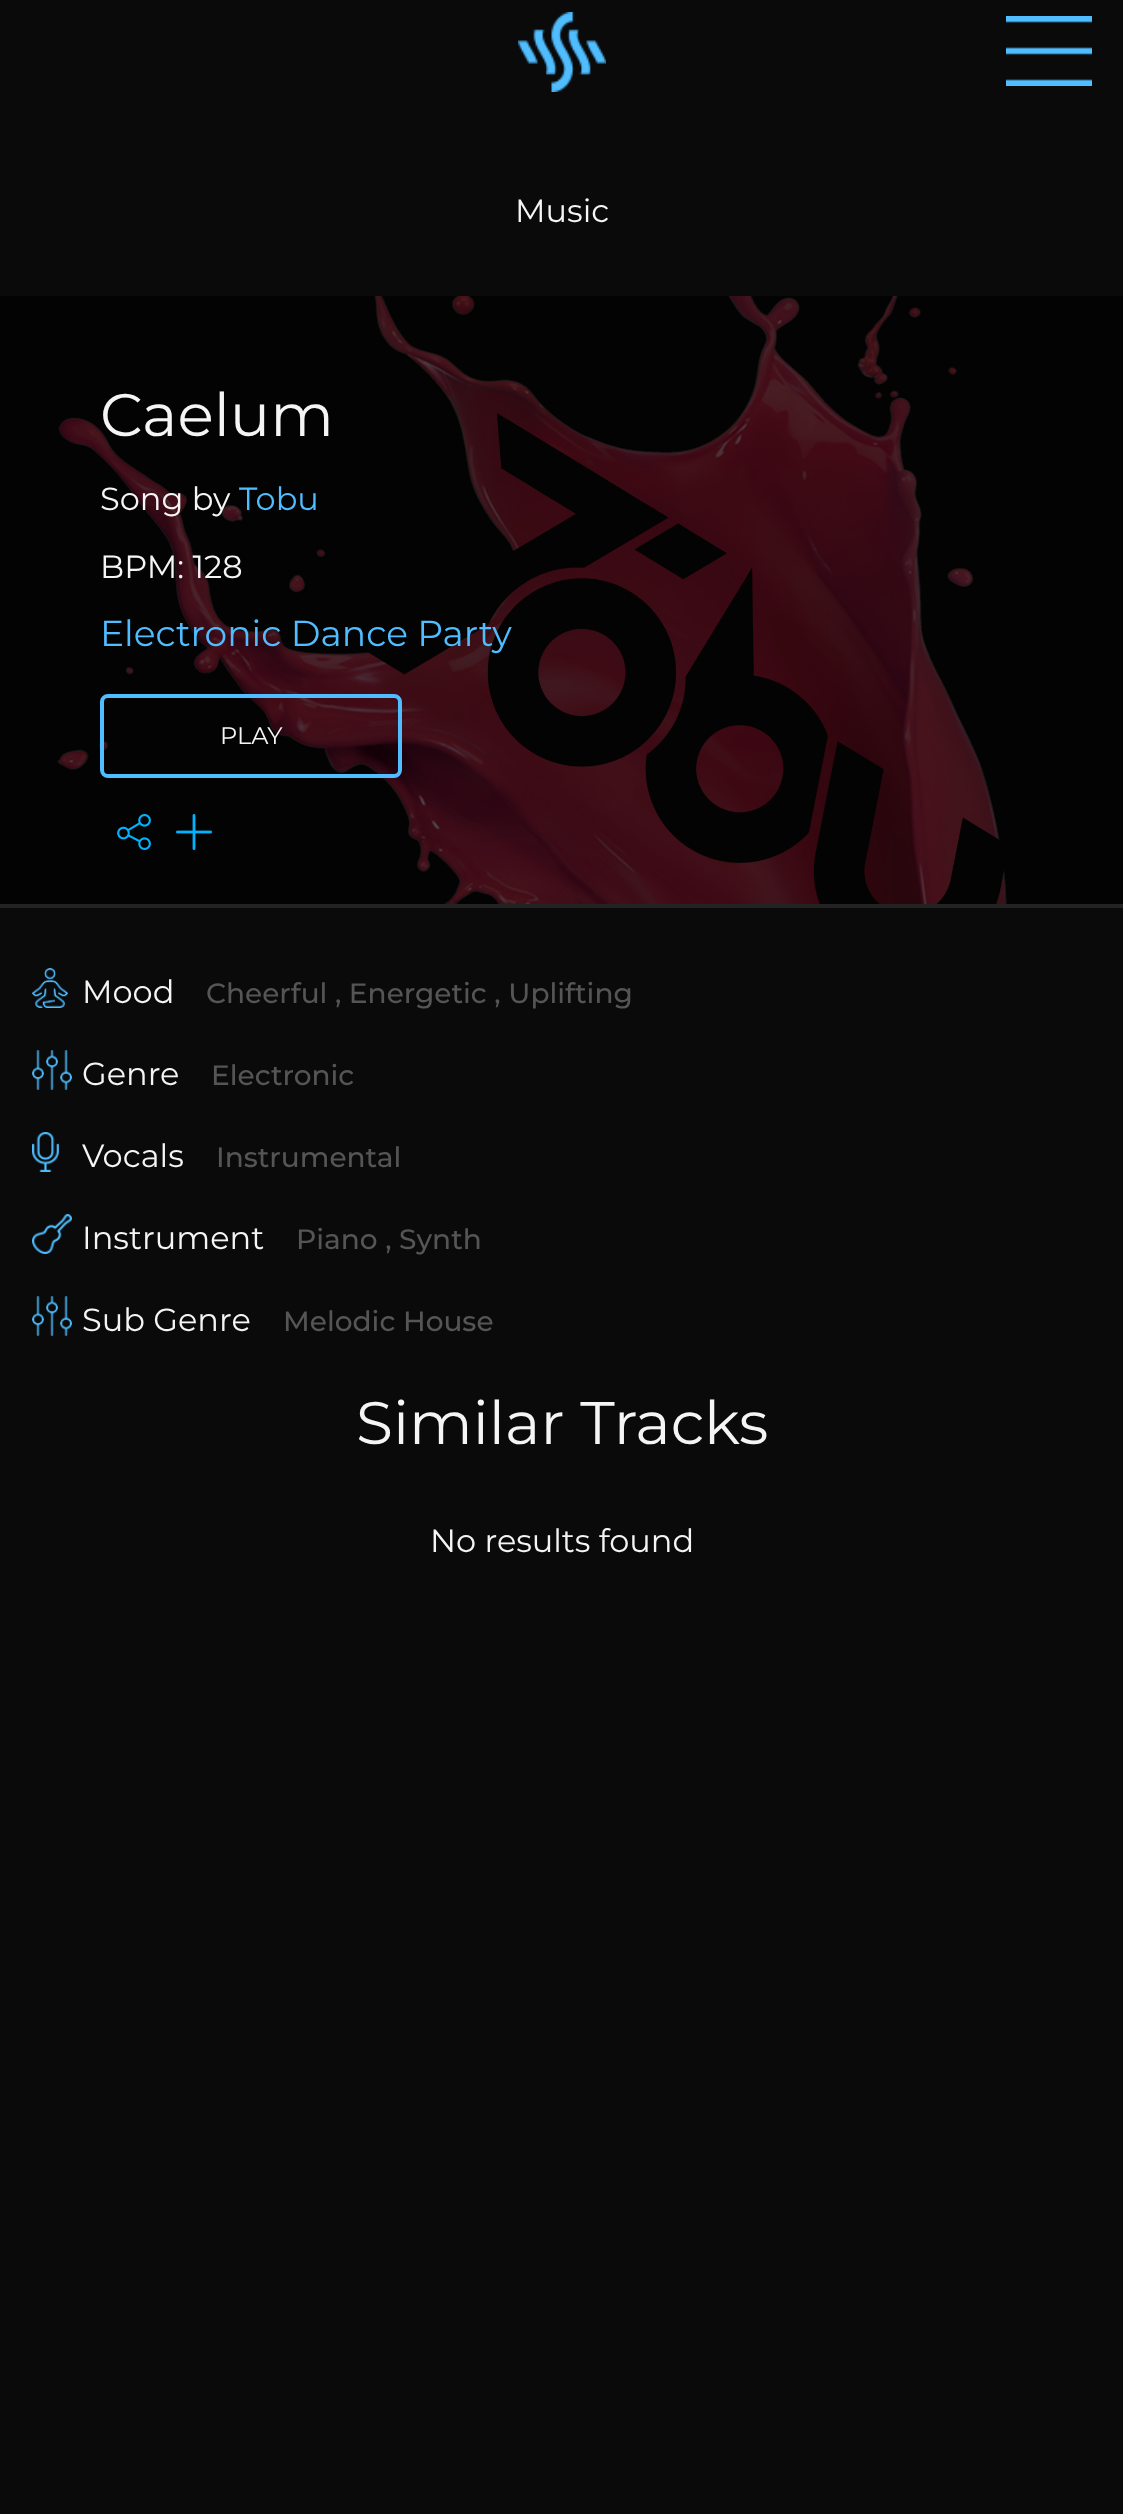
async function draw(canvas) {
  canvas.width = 1123
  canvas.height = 2514
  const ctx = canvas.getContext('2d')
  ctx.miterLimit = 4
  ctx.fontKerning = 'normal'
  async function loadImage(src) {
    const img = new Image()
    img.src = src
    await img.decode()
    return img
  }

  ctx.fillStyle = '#0a0a0a'
  ctx.fillRect(0, 0, 1123, 2514)
  ctx.fillStyle = '#030303'
  ctx.fillRect(0, 296, 1123, 608)
  ctx.drawImage(await loadImage('image0.png'), 518, 12, 88, 80)
  ctx.drawImage(await loadImage('image1.png'), 1006, 16, 86, 70)
  ctx.font = '32px Montserrat'
  ctx.fillStyle = '#f5f5f5'
  ctx.fillText('Music', 515, 222)
  ctx.drawImage(await loadImage('image2.png'), 57, 296, 950, 608)
  ctx.fillStyle = '#232323'
  ctx.fillRect(0, 904, 1123, 4)
  ctx.font = '60px Montserrat'
  ctx.fillStyle = '#f5f5f5'
  ctx.fillText('Caelum', 100, 436)
  ctx.font = '32px Montserrat'
  ctx.fillText('Song by', 100, 510)
  ctx.fillStyle = '#4fbdff'
  ctx.fillText('Tobu', 239, 510)
  ctx.fillStyle = '#f5f5f5'
  ctx.fillText('BPM: 128', 100, 578)
  ctx.font = '36px Montserrat'
  ctx.fillStyle = '#4fbdff'
  ctx.fillText('Electronic Dance Party', 100, 646)
  ctx.beginPath()
  ctx.roundRect(102, 696, 298, 80, 6)
  ctx.strokeStyle = '#4fbdff'
  ctx.lineWidth = 4
  ctx.stroke()
  ctx.font = '24px Montserrat'
  ctx.fillStyle = '#f5f5f5'
  ctx.fillText('PLAY', 220, 744)
  ctx.drawImage(await loadImage('image3.png'), 117, 814, 34, 36)
  ctx.drawImage(await loadImage('image4.png'), 176, 814, 36, 36)
  ctx.drawImage(await loadImage('image5.png'), 32, 968, 36, 40)
  ctx.font = '32px Montserrat'
  ctx.fillText('Mood', 82, 1003)
  ctx.font = '500 28px Montserrat'
  ctx.fillStyle = '#555'
  ctx.fillText('Cheerful , Energetic , Uplifting', 206, 1003)
  ctx.drawImage(await loadImage('image6.png'), 32, 1050, 40, 40)
  ctx.font = '32px Montserrat'
  ctx.fillStyle = '#f5f5f5'
  ctx.fillText('Genre', 82, 1085)
  ctx.font = '500 28px Montserrat'
  ctx.fillStyle = '#555'
  ctx.fillText('Electronic', 211, 1085)
  ctx.drawImage(await loadImage('image7.png'), 32, 1132, 27, 40)
  ctx.font = '32px Montserrat'
  ctx.fillStyle = '#f5f5f5'
  ctx.fillText('Vocals', 82, 1167)
  ctx.font = '500 28px Montserrat'
  ctx.fillStyle = '#555'
  ctx.fillText('Instrumental', 216, 1167)
  ctx.drawImage(await loadImage('image8.png'), 32, 1214, 40, 40)
  ctx.font = '32px Montserrat'
  ctx.fillStyle = '#f5f5f5'
  ctx.fillText('Instrument', 82, 1249)
  ctx.font = '500 28px Montserrat'
  ctx.fillStyle = '#555'
  ctx.fillText('Piano , Synth', 296, 1249)
  ctx.drawImage(await loadImage('image9.png'), 32, 1296, 40, 40)
  ctx.font = '32px Montserrat'
  ctx.fillStyle = '#f5f5f5'
  ctx.fillText('Sub Genre', 82, 1331)
  ctx.font = '500 28px Montserrat'
  ctx.fillStyle = '#555'
  ctx.fillText('Melodic House', 283, 1331)
  ctx.font = '60px Montserrat'
  ctx.fillStyle = '#f5f5f5'
  ctx.fillText('Similar Tracks', 356, 1444)
  ctx.font = '32px Montserrat'
  ctx.fillText('No results found', 430, 1552)
}

draw(document.querySelector('canvas'))
